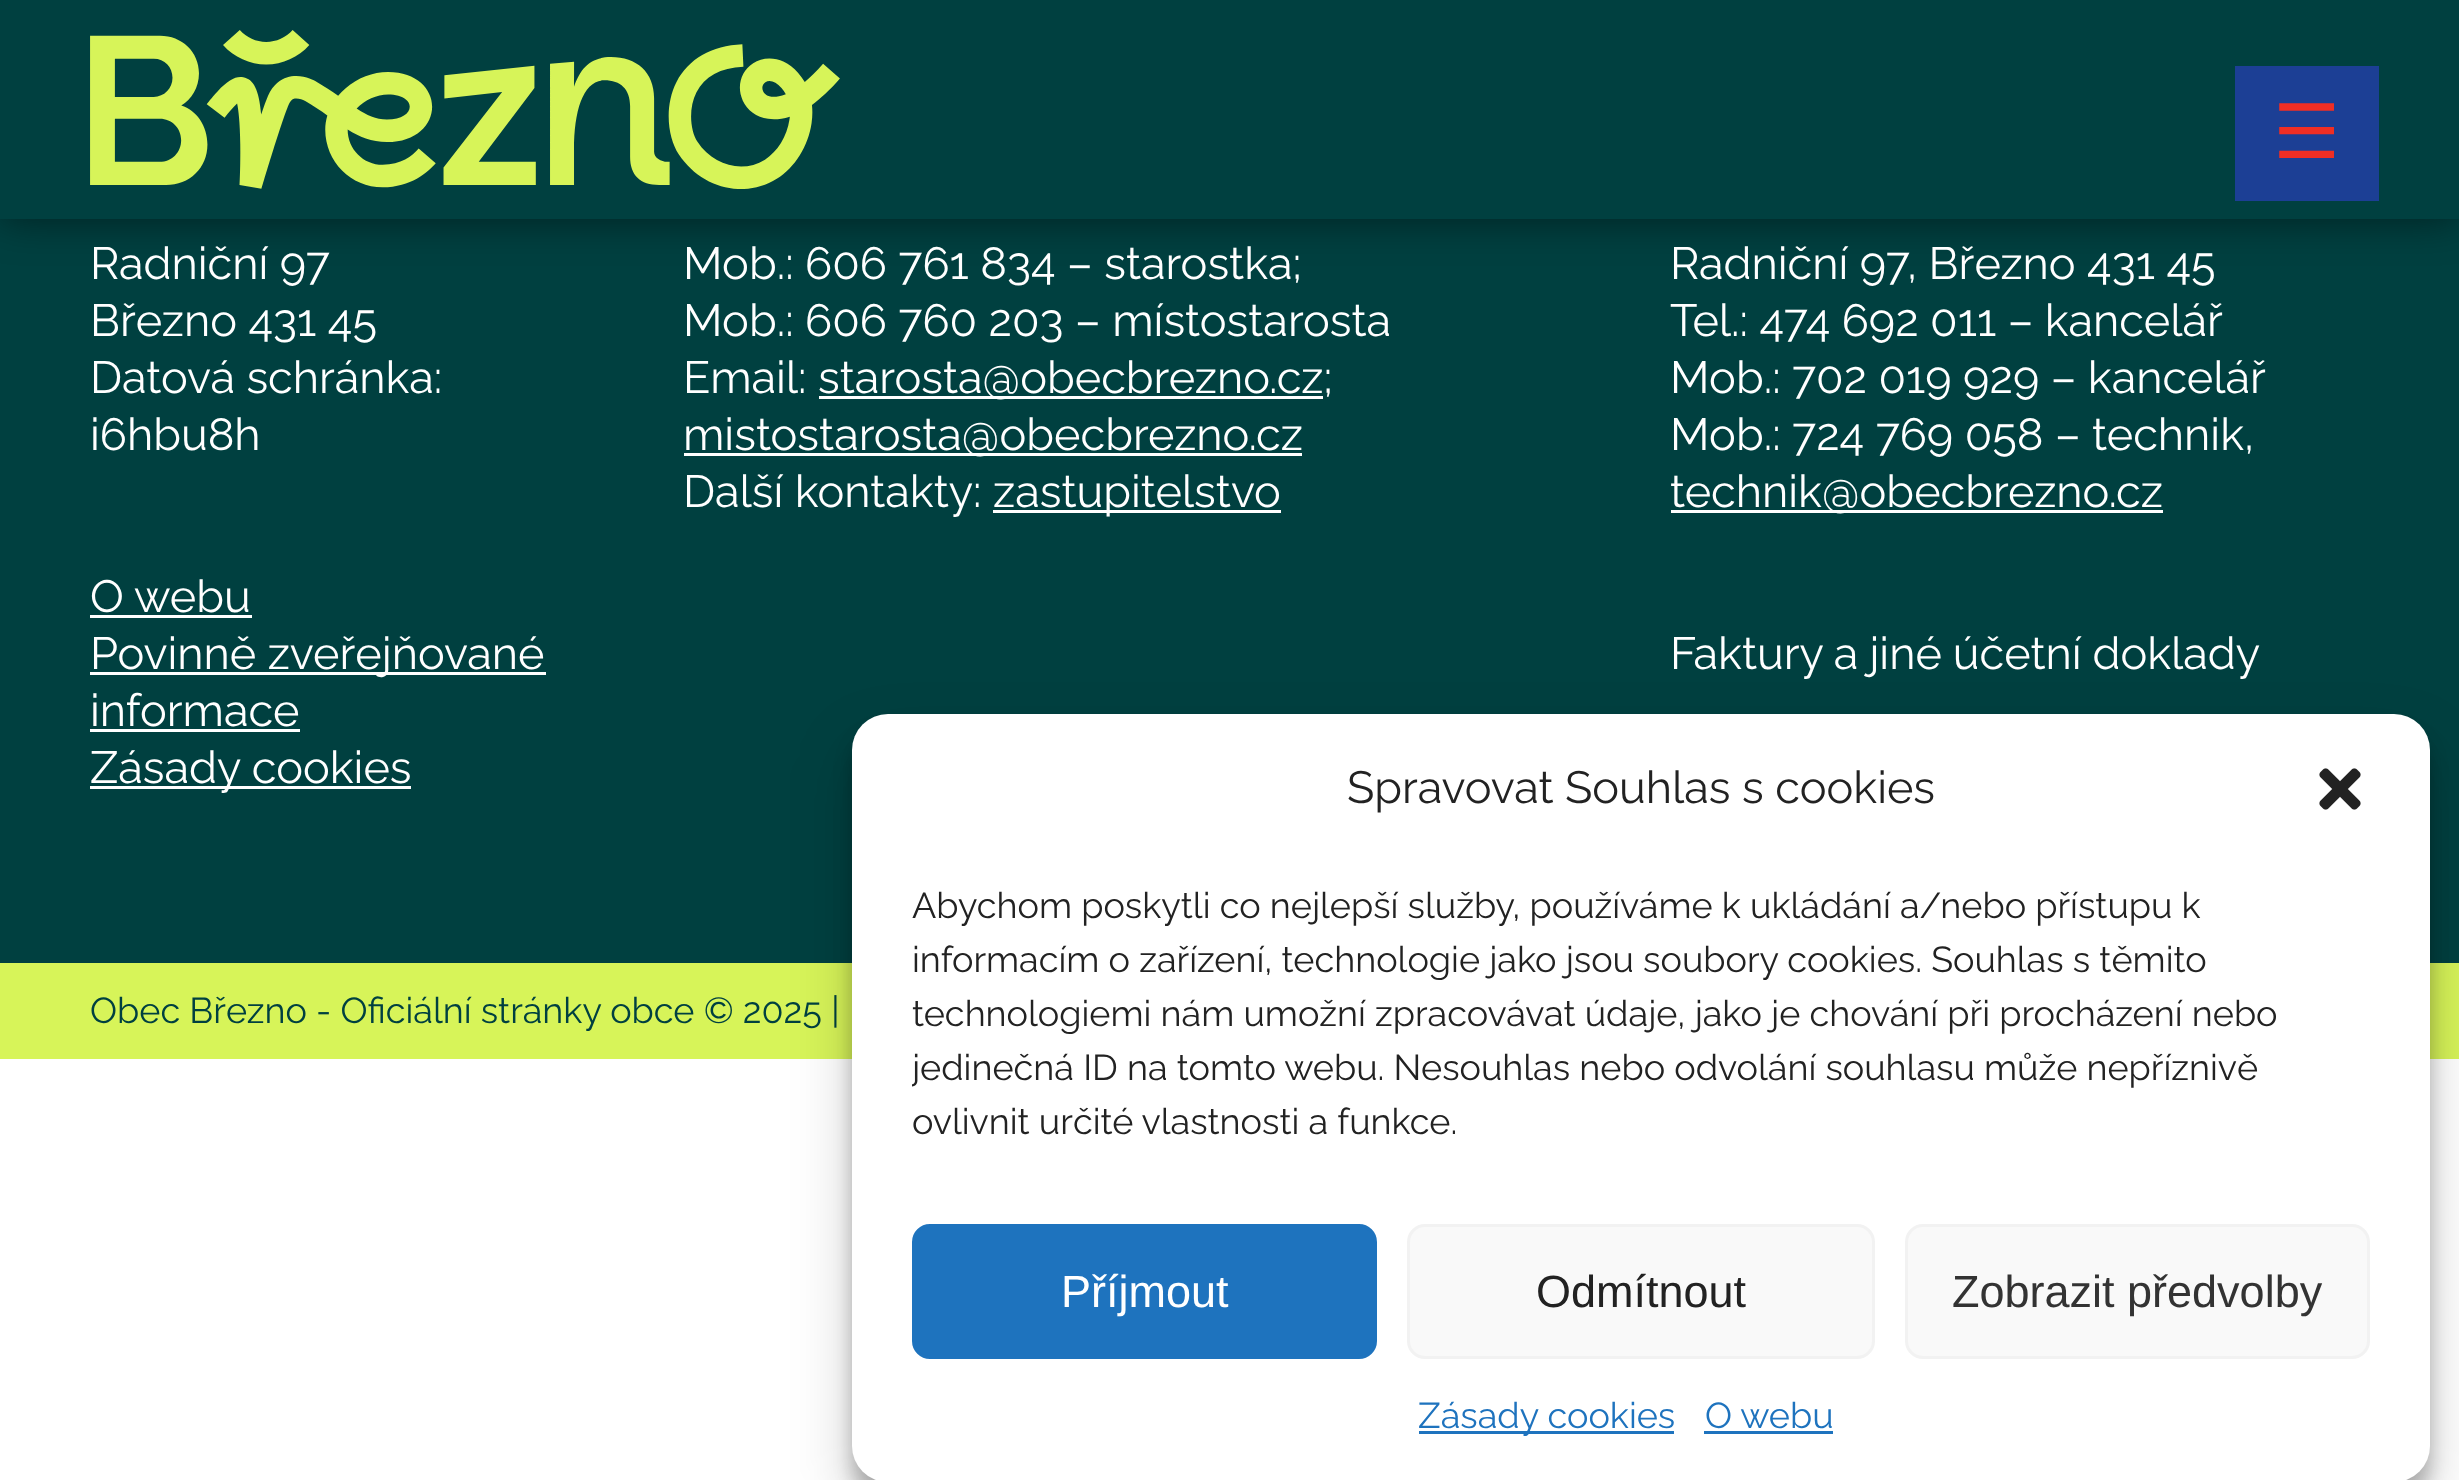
async function draw(canvas) {
  canvas.width = 2459
  canvas.height = 1480
  const ctx = canvas.getContext('2d')
  ctx.miterLimit = 4
  ctx.fontKerning = 'normal'
  async function loadImage(src) {
    const img = new Image()
    img.src = src
    await img.decode()
    return img
  }

  ctx.fillStyle = '#fff'
  ctx.fillRect(0, 0, 2459, 1480)
  ctx.fillStyle = '#004040'
  ctx.fillRect(0, 219, 2459, 744)
  ctx.fillStyle = '#00000080'
  ctx.filter = 'blur(21px)'
  ctx.beginPath()
  ctx.rect(0, 0, 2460, 219)
  ctx.fill()
  ctx.filter = 'none'
  ctx.fillStyle = '#004040'
  ctx.fillRect(0, 0, 2459, 219)
  ctx.drawImage(await loadImage('image0.png'), 90, 30, 750, 159)
  ctx.fillStyle = '#1c3f95'
  ctx.fillRect(2235, 66, 144, 135)
  ctx.font = '75px DejaVu Sans'
  ctx.fillStyle = '#ef2e24'
  ctx.fillText('☰', 2273, 158)
  ctx.font = '45px Raleway'
  ctx.fillStyle = '#fff'
  ctx.fillText('Radniční 97', 90, 279)
  ctx.fillText('Březno 431 45', 90, 336)
  ctx.fillText('Datová schránka:', 90, 393)
  ctx.fillText('i6hbu8h', 90, 450)
  ctx.fillText('O webu', 90, 612)
  ctx.fillRect(90, 615, 162, 3)
  ctx.fillRect(90, 672, 456, 3)
  ctx.fillText('Povinně zveřejňované', 90, 669)
  ctx.fillText('informace', 90, 726)
  ctx.fillRect(90, 729, 210, 3)
  ctx.fillRect(90, 786, 321, 3)
  ctx.fillText('Zásady cookies', 90, 783)
  ctx.fillText('Mob.: 606 761 834 – starostka;', 683, 279)
  ctx.fillText('Mob.: 606 760 203 – místostarosta', 683, 336)
  ctx.fillText('Email:', 683, 393)
  ctx.fillRect(819, 396, 504, 3)
  ctx.fillText('starosta@obecbrezno.cz;', 818, 393)
  ctx.fillRect(684, 453, 618, 3)
  ctx.fillText('mistostarosta@obecbrezno.cz', 683, 450)
  ctx.fillText('Další kontakty:', 683, 507)
  ctx.fillRect(993, 510, 288, 3)
  ctx.fillText('zastupitelstvo', 993, 507)
  ctx.fillText('Radniční 97, Březno 431 45', 1670, 279)
  ctx.fillText('Tel.: 474 692 011 – kancelář', 1670, 336)
  ctx.fillText('Mob.: 702 019 929 – kancelář', 1670, 393)
  ctx.fillText('Mob.: 724 769 058 – technik,', 1670, 450)
  ctx.fillRect(1671, 510, 492, 3)
  ctx.fillText('technik@obecbrezno.cz', 1670, 507)
  ctx.wordSpacing = '-0.5px'
  ctx.fillText('Faktury a jiné účetní doklady', 1670, 669)
  ctx.fillStyle = '#d7f459'
  ctx.fillRect(0, 963, 2459, 96)
  ctx.wordSpacing = '0px'
  ctx.font = '36px Raleway'
  ctx.fillStyle = '#004040'
  ctx.fillText('Obec Březno - Oficiální stránky obce © 2025 |', 90, 1023)
  ctx.fillStyle = '#0000003b'
  ctx.filter = 'blur(9px)'
  ctx.beginPath()
  ctx.roundRect(852, 732, 1578, 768, 36)
  ctx.fill()
  ctx.filter = 'none'
  ctx.fillStyle = '#00000030'
  ctx.filter = 'blur(30px)'
  ctx.beginPath()
  ctx.roundRect(852, 744, 1578, 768, 36)
  ctx.fill()
  ctx.filter = 'none'
  ctx.fillStyle = '#fff'
  ctx.beginPath()
  ctx.roundRect(852, 714, 1578, 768, 36)
  ctx.fill()
  ctx.font = '45px Raleway'
  ctx.fillStyle = '#222'
  ctx.fillText('Spravovat Souhlas s cookies', 1347, 803)
  ctx.drawImage(await loadImage('image1.png'), 2319, 768, 42, 42)
  ctx.font = '36px Raleway'
  ctx.fillText('Abychom poskytli co nejlepší služby, používáme k ukládání a/nebo přístupu k', 912, 918)
  ctx.fillText('informacím o zařízení, technologie jako jsou soubory cookies. Souhlas s těmito', 912, 972)
  ctx.fillText('technologiemi nám umožní zpracovávat údaje, jako je chování při procházení nebo', 912, 1026)
  ctx.save()
  ctx.beginPath()
  ctx.rect(912, 879, 1458, 285)
  ctx.clip()
  ctx.fillText('jedinečná ID na tomto webu. Nesouhlas nebo odvolání souhlasu může nepříznivě', 912, 1080)
  ctx.restore()
  ctx.fillText('ovlivnit určité vlastnosti a funkce.', 912, 1134)
  ctx.fillStyle = '#1e73be'
  ctx.beginPath()
  ctx.roundRect(913.5, 1225.5, 462, 132, 16.5)
  ctx.fill()
  ctx.strokeStyle = '#1e73be'
  ctx.lineWidth = 3
  ctx.stroke()
  ctx.font = '45px Liberation Sans'
  ctx.fillStyle = '#fff'
  ctx.fillText('Příjmout', 1061, 1307)
  ctx.fillStyle = '#f9f9f9'
  ctx.beginPath()
  ctx.roundRect(1408.5, 1225.5, 465, 132, 16.5)
  ctx.fill()
  ctx.strokeStyle = '#f2f2f2'
  ctx.stroke()
  ctx.fillStyle = '#222'
  ctx.fillText('Odmítnout', 1536, 1307)
  ctx.fillStyle = '#f9f9f9'
  ctx.beginPath()
  ctx.roundRect(1906.5, 1225.5, 462, 132, 16.5)
  ctx.fill()
  ctx.stroke()
  ctx.fillStyle = '#333'
  ctx.fillText('Zobrazit předvolby', 1952, 1307)
  ctx.fillStyle = '#1e73be'
  ctx.fillRect(1419, 1431, 255, 3)
  ctx.font = '36px Raleway'
  ctx.fillText('Zásady cookies', 1418, 1428)
  ctx.fillText('O webu', 1705, 1428)
  ctx.fillRect(1704, 1431, 129, 3)
}

draw(document.querySelector('canvas'))
